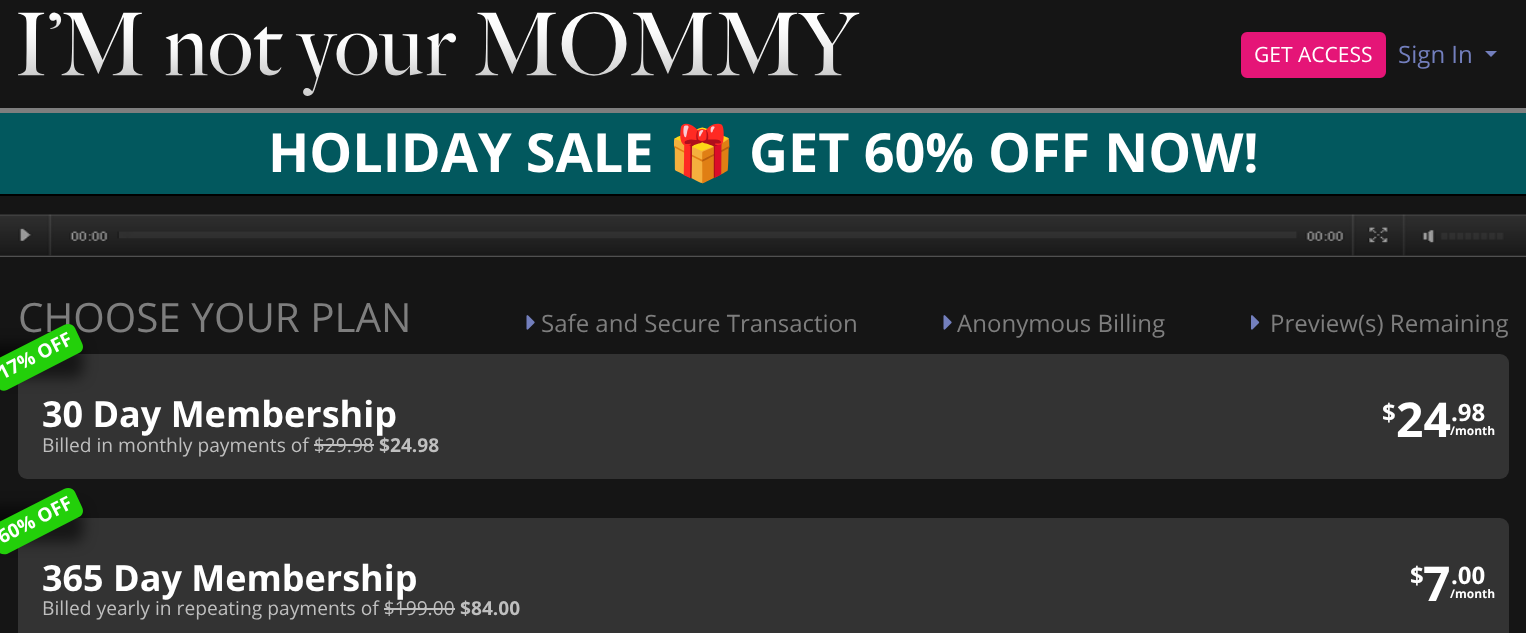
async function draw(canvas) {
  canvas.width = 1526
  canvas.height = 633
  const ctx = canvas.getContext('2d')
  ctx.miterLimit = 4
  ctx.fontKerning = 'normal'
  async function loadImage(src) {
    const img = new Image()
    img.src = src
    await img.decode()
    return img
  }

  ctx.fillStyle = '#151515'
  ctx.fillRect(0, 0, 1526, 633)
  ctx.fillStyle = '#7e7e7e'
  ctx.fillRect(0, 108, 1526, 5)
  ctx.drawImage(await loadImage('image0.png'), 18, 12, 842, 84)
  ctx.fillStyle = '#e51577'
  ctx.beginPath()
  ctx.roundRect(1242, 33, 143, 44, 5)
  ctx.fill()
  ctx.strokeStyle = '#e51577'
  ctx.lineWidth = 2
  ctx.stroke()
  ctx.font = '21px Open Sans'
  ctx.fillStyle = '#fff'
  ctx.fillText('GET ACCESS', 1254, 62)
  ctx.font = '24px Open Sans'
  ctx.fillStyle = '#737fbd'
  ctx.fillText('Sign In', 1398, 63)
  ctx.beginPath()
  ctx.moveTo(1485, 51)
  ctx.lineTo(1497, 51)
  ctx.lineTo(1491, 57)
  ctx.closePath()
  ctx.fill()
  ctx.fillStyle = '#02585e'
  ctx.fillRect(0, 113, 1526, 81)
  ctx.fillStyle = '#000'
  ctx.fillRect(0, 194, 1526, 2)
  ctx.font = 'bold 54px Open Sans'
  ctx.fillStyle = '#fff'
  ctx.fillText('HOLIDAY SALE', 268, 172)
  ctx.font = 'bold 54px Noto Color Emoji'
  ctx.fillText('🎁', 668, 172)
  ctx.font = 'bold 54px Open Sans'
  ctx.fillText('GET 60% OFF NOW!', 749, 172)
  ctx.fillStyle = '#707070'
  ctx.fillRect(0, 256, 1526, 1)
  ctx.drawImage(await loadImage('image1.png'), 0, 214, 1526, 43)
  ctx.font = '40.4px Open Sans'
  ctx.fillStyle = '#7e7e7e'
  ctx.fillText('CHOOSE YOUR PLAN', 18, 332)
  ctx.drawImage(await loadImage('image2.png'), 526, 315, 9, 15)
  ctx.font = '24px Open Sans'
  ctx.fillText('Safe and Secure Transaction', 541, 332)
  ctx.drawImage(await loadImage('image2.png'), 943, 315, 9, 15)
  ctx.fillText('Anonymous Billing', 957, 332)
  ctx.drawImage(await loadImage('image3.png'), 1251, 315, 9, 15)
  ctx.fillText('Preview(s) Remaining', 1270, 332)
  ctx.fillStyle = '#333'
  ctx.beginPath()
  ctx.roundRect(18, 354, 1491, 125, 9)
  ctx.fill()
  ctx.fillStyle = '#00000091'
  ctx.filter = 'blur(7px)'
  ctx.beginPath()
  ctx.roundRect(-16, 344, 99, 34, 9)
  ctx.fill()
  ctx.filter = 'none'
  ctx.fillStyle = '#23d00a'
  ctx.beginPath()
  ctx.moveTo(-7, 361)
  ctx.lineTo(64, 325)
  ctx.bezierCurveTo(68, 323, 73, 324, 75, 328)
  ctx.lineTo(82, 343)
  ctx.bezierCurveTo(84, 347, 83, 351, 79, 353)
  ctx.lineTo(7, 390)
  ctx.bezierCurveTo(3, 392, -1, 390, -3, 386)
  ctx.lineTo(-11, 371)
  ctx.bezierCurveTo(-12, 368, -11, 363, -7, 361)
  ctx.closePath()
  ctx.fill()
  ctx.font = 'bold 19.2px Open Sans'
  ctx.fillStyle = '#fff'
  ctx.save()
  ctx.translate(2, 380)
  ctx.rotate(-27 * Math.PI / 180)
  ctx.fillText('17% OFF', 0, 0)
  ctx.restore()
  ctx.font = 'bold 36px Open Sans'
  ctx.fillText('30 Day Membership', 42, 427)
  ctx.font = 'bold 24px Open Sans'
  ctx.fillText('$', 1382, 421)
  ctx.font = 'bold 48px Open Sans'
  ctx.fillText('24', 1396, 437)
  ctx.font = 'bold 24px Open Sans'
  ctx.fillText('.98', 1451, 421)
  ctx.font = 'bold 12px Open Sans'
  ctx.fillText('/month', 1450, 435)
  ctx.font = '19.2px Open Sans'
  ctx.fillStyle = '#bfbfbf'
  ctx.fillText('Billed in monthly payments of $29.98', 42, 452)
  ctx.font = 'bold 19.2px Open Sans'
  ctx.fillText('$24.98', 379, 452)
  ctx.fillRect(314, 444, 60, 2)
  ctx.fillStyle = '#333'
  ctx.beginPath()
  ctx.roundRect(18, 518, 1491, 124, 9)
  ctx.fill()
  ctx.fillStyle = '#00000091'
  ctx.filter = 'blur(7px)'
  ctx.beginPath()
  ctx.roundRect(-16, 507, 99, 35, 9)
  ctx.fill()
  ctx.filter = 'none'
  ctx.fillStyle = '#23d00a'
  ctx.beginPath()
  ctx.moveTo(-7, 525)
  ctx.lineTo(64, 489)
  ctx.bezierCurveTo(68, 487, 73, 488, 75, 492)
  ctx.lineTo(82, 507)
  ctx.bezierCurveTo(84, 511, 83, 515, 79, 517)
  ctx.lineTo(7, 554)
  ctx.bezierCurveTo(3, 555, -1, 554, -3, 550)
  ctx.lineTo(-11, 535)
  ctx.bezierCurveTo(-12, 532, -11, 527, -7, 525)
  ctx.closePath()
  ctx.fill()
  ctx.fillStyle = '#fff'
  ctx.save()
  ctx.translate(2, 544)
  ctx.rotate(-27 * Math.PI / 180)
  ctx.fillText('60% OFF', 0, 0)
  ctx.restore()
  ctx.font = 'bold 36px Open Sans'
  ctx.fillText('365 Day Membership', 42, 591)
  ctx.font = 'bold 24px Open Sans'
  ctx.fillText('$', 1410, 584)
  ctx.font = 'bold 48px Open Sans'
  ctx.fillText('7', 1423, 601)
  ctx.font = 'bold 24px Open Sans'
  ctx.fillText('.00', 1451, 584)
  ctx.font = 'bold 12px Open Sans'
  ctx.fillText('/month', 1450, 598)
  ctx.font = '19.2px Open Sans'
  ctx.fillStyle = '#bfbfbf'
  ctx.fillText('Billed yearly in repeating payments of $199.00', 42, 615)
  ctx.font = 'bold 19.2px Open Sans'
  ctx.fillText('$84.00', 460, 615)
  ctx.fillRect(384, 608, 71, 2)
}

draw(document.querySelector('canvas'))
